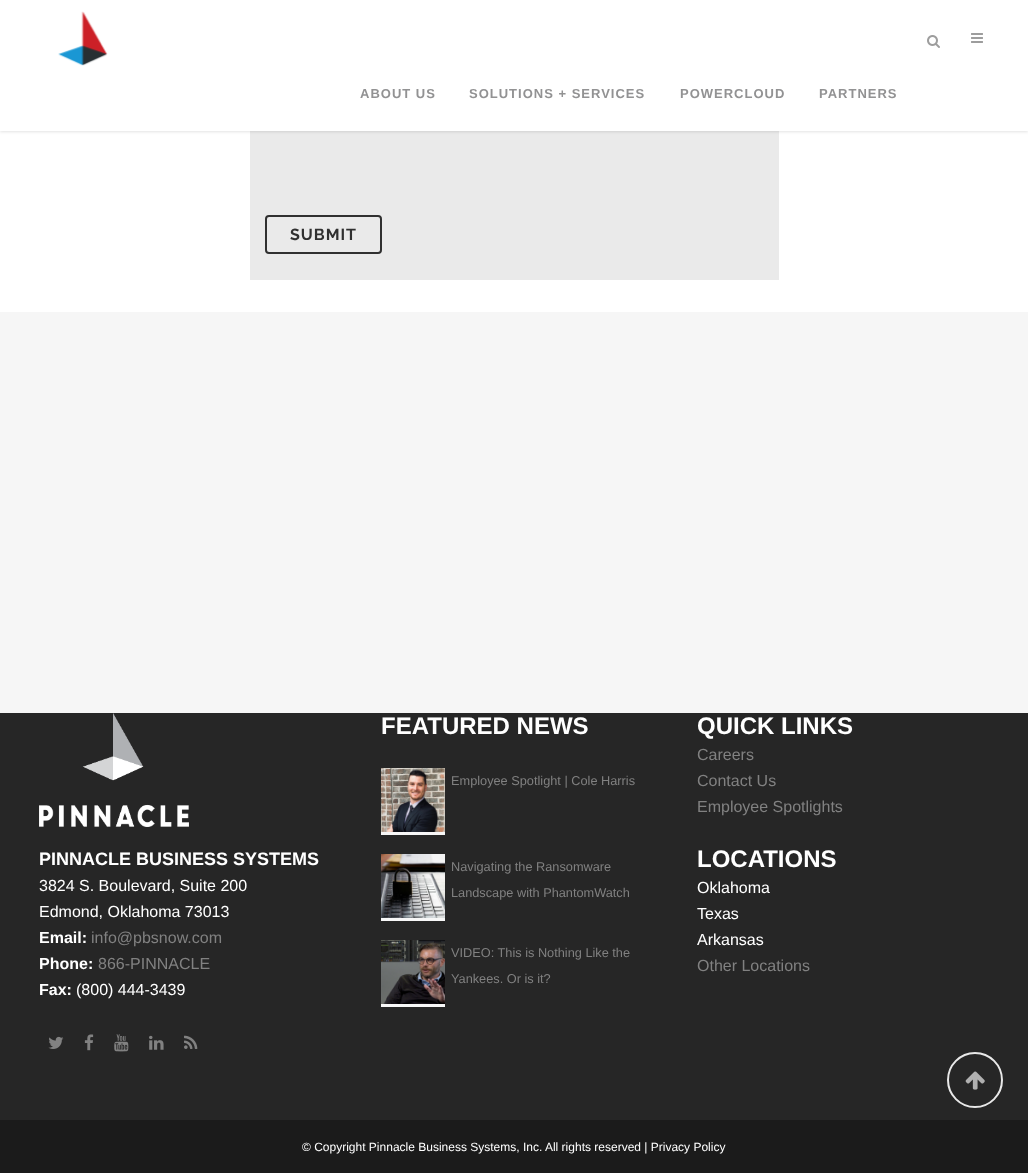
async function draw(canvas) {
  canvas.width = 1028
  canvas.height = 1173
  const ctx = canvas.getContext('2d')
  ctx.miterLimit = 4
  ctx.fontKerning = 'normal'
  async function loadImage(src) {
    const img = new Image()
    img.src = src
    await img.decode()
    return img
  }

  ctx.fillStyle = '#f6f6f6'
  ctx.fillRect(0, 0, 1028, 1173)
  ctx.fillStyle = '#fff'
  ctx.fillRect(0, 131, 1028, 181)
  ctx.fillStyle = '#eaeaea'
  ctx.fillRect(250, 131, 529, 149)
  ctx.fillStyle = '#0000001c'
  ctx.filter = 'blur(1.5px)'
  ctx.beginPath()
  ctx.rect(0, 1, 1028, 131)
  ctx.fill()
  ctx.filter = 'none'
  ctx.fillStyle = '#fff'
  ctx.fillRect(0, 0, 1028, 131)
  ctx.drawImage(await loadImage('image0.png'), 58, 11, 50, 55)
  ctx.drawImage(await loadImage('image1.png'), 927, 35, 13, 13)
  ctx.drawImage(await loadImage('image2.png'), 971, 33, 12, 10)
  ctx.letterSpacing = '1px'
  ctx.font = 'bold 13px Liberation Sans'
  ctx.fillStyle = '#929293'
  ctx.fillText('ABOUT US', 360, 98)
  ctx.fillText('SOLUTIONS + SERVICES', 469, 98)
  ctx.fillText('POWERCLOUD', 680, 98)
  ctx.fillText('PARTNERS', 819, 98)
  ctx.beginPath()
  ctx.roundRect(266, 216, 115, 37, 3)
  ctx.strokeStyle = '#303030'
  ctx.lineWidth = 2
  ctx.stroke()
  ctx.font = 'bold 16px Raleway'
  ctx.fillStyle = '#303030'
  ctx.fillText('SUBMIT', 290, 240)
  ctx.fillStyle = '#262626'
  ctx.fillRect(0, 713, 1028, 407)
  ctx.drawImage(await loadImage('image3.png'), 39, 713, 150, 114)
  ctx.letterSpacing = '0px'
  ctx.font = 'bold 18px Liberation Sans'
  ctx.fillStyle = '#fff'
  ctx.fillText('PINNACLE BUSINESS SYSTEMS', 39, 865)
  ctx.font = '16px Liberation Sans'
  ctx.fillText('3824 S. Boulevard, Suite 200', 39, 891)
  ctx.fillText('Edmond, Oklahoma 73013', 39, 917)
  ctx.font = 'bold 16px Liberation Sans'
  ctx.fillText('Email:', 39, 943)
  ctx.font = '16px Liberation Sans'
  ctx.fillStyle = '#818181'
  ctx.fillText('info@pbsnow.com', 91, 943)
  ctx.font = 'bold 16px Liberation Sans'
  ctx.fillStyle = '#fff'
  ctx.fillText('Phone:', 39, 969)
  ctx.font = '16px Liberation Sans'
  ctx.fillStyle = '#818181'
  ctx.fillText('866-PINNACLE', 98, 969)
  ctx.font = 'bold 16px Liberation Sans'
  ctx.fillStyle = '#fff'
  ctx.fillText('Fax:', 39, 995)
  ctx.font = '16px Liberation Sans'
  ctx.fillText('(800) 444-3439', 76, 995)
  ctx.drawImage(await loadImage('image4.png'), 48, 1036, 16, 13)
  ctx.drawImage(await loadImage('image5.png'), 84, 1034, 10, 17)
  ctx.drawImage(await loadImage('image6.png'), 114, 1034, 15, 18)
  ctx.drawImage(await loadImage('image7.png'), 149, 1035, 15, 15)
  ctx.drawImage(await loadImage('image8.png'), 184, 1035, 14, 14)
  ctx.font = 'bold 24px Liberation Sans'
  ctx.fillText('FEATURED NEWS', 381, 734)
  ctx.drawImage(await loadImage('image9.png'), 381, 768, 64, 64)
  ctx.fillStyle = '#f7f7f7'
  ctx.fillRect(381, 832, 64, 3)
  ctx.font = '12.75px Liberation Sans'
  ctx.fillStyle = '#818181'
  ctx.fillText('Employee Spotlight | Cole Harris', 451, 785)
  ctx.drawImage(await loadImage('image10.png'), 381, 854, 64, 64)
  ctx.fillStyle = '#f7f7f7'
  ctx.fillRect(381, 918, 64, 3)
  ctx.fillStyle = '#818181'
  ctx.fillText('Navigating the Ransomware', 451, 871)
  ctx.fillText('Landscape with PhantomWatch', 451, 897)
  ctx.fillStyle = '#f7f7f7'
  ctx.fillRect(381, 1003, 64, 4)
  ctx.drawImage(await loadImage('image11.png'), 381, 940, 64, 64)
  ctx.fillStyle = '#818181'
  ctx.fillText('VIDEO: This is Nothing Like the', 451, 957)
  ctx.fillText('Yankees. Or is it?', 451, 983)
  ctx.font = 'bold 24px Liberation Sans'
  ctx.fillStyle = '#fff'
  ctx.fillText('QUICK LINKS', 697, 734)
  ctx.font = '16px Liberation Sans'
  ctx.fillStyle = '#818181'
  ctx.fillText('Careers', 697, 760)
  ctx.fillText('Contact Us', 697, 786)
  ctx.fillText('Employee Spotlights', 697, 812)
  ctx.font = 'bold 24px Liberation Sans'
  ctx.fillStyle = '#fff'
  ctx.fillText('LOCATIONS', 697, 867)
  ctx.font = '16px Liberation Sans'
  ctx.fillText('Oklahoma', 697, 893)
  ctx.fillText('Texas', 697, 919)
  ctx.fillText('Arkansas', 697, 945)
  ctx.fillStyle = '#818181'
  ctx.fillText('Other Locations', 697, 971)
  ctx.fillStyle = '#1b1b1b'
  ctx.fillRect(0, 1120, 1028, 53)
  ctx.font = '12px Liberation Sans'
  ctx.fillStyle = '#fff'
  ctx.fillText('© Copyright Pinnacle Business Systems, Inc. All rights reserved | Privacy Policy', 302, 1151)
  ctx.beginPath()
  ctx.arc(975, 1080, 27, 0, 2 * Math.PI)
  ctx.strokeStyle = '#e8e8e8'
  ctx.stroke()
  ctx.drawImage(await loadImage('image12.png'), 965, 1071, 20, 19)
}

draw(document.querySelector('canvas'))
